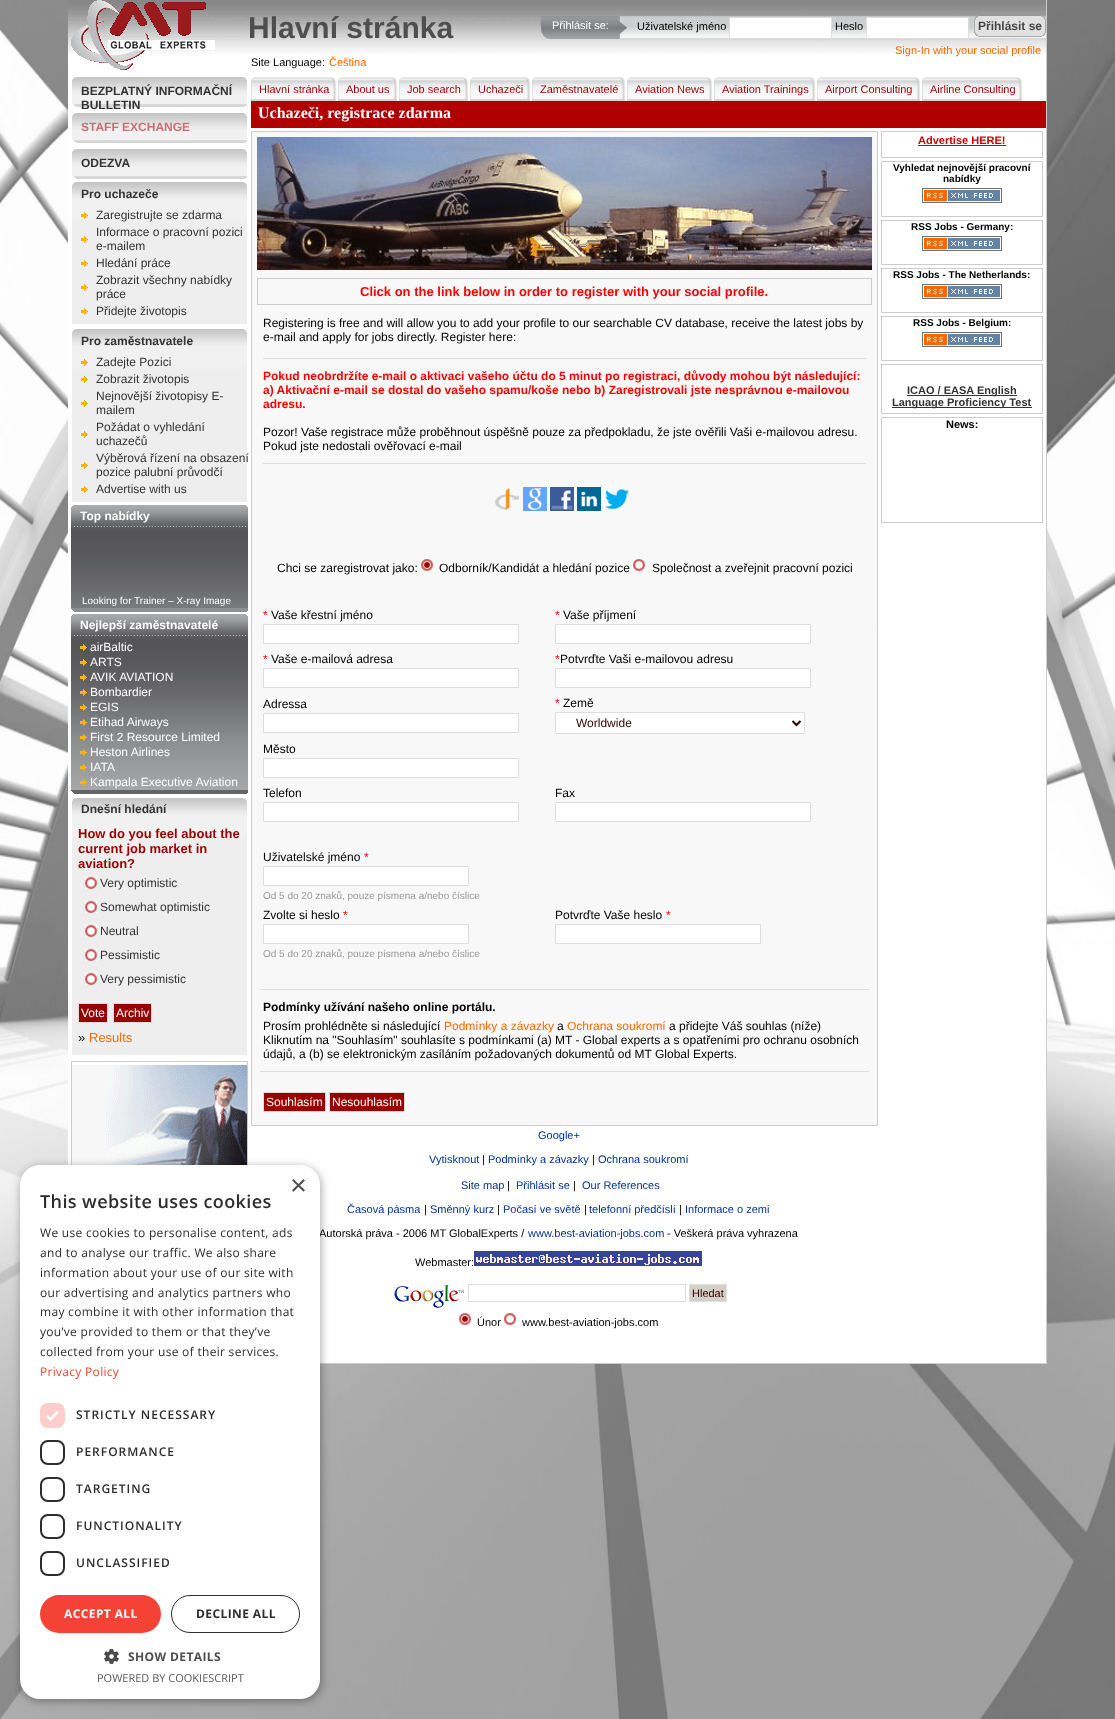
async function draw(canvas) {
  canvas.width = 1115
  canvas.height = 1719
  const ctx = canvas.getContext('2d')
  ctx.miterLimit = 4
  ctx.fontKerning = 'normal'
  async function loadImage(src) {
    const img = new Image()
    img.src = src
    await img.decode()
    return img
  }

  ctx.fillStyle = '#fff'
  ctx.fillRect(0, 0, 1115, 1719)
  ctx.drawImage(await loadImage('image1.png'), 0, 0, 1115, 1719)
  ctx.fillRect(68, 54, 978, 1309)
  ctx.drawImage(await loadImage('image0.png'), 68, 0, 978, 54)
  ctx.fillStyle = '#ccc'
  ctx.fillRect(1046, 0, 1, 1364)
  ctx.fillRect(320, 1363, 727, 1)
  ctx.drawImage(await loadImage('image2.png'), 71, 0, 144, 70)
  ctx.font = 'bold 30px Liberation Sans'
  ctx.fillStyle = '#4e4e4e'
  ctx.fillText('Hlavní stránka', 248, 38)
  ctx.drawImage(await loadImage('image3.png'), 540, 16, 79, 23)
  ctx.font = '11px Liberation Sans'
  ctx.fillStyle = '#fff'
  ctx.fillText('Přihlásit se:', 552, 29)
  ctx.drawImage(await loadImage('image4.png'), 619, 16, 8, 24)
  ctx.drawImage(await loadImage('image5.png'), 627, 16, 419, 24)
  ctx.fillStyle = '#000'
  ctx.fillText('Uživatelské jméno', 637, 30)
  ctx.fillStyle = '#fff'
  ctx.beginPath()
  ctx.rect(729.5, 17.5, 102, 21)
  ctx.fill()
  ctx.strokeStyle = '#ddd'
  ctx.stroke()
  ctx.fillStyle = '#000'
  ctx.fillText('Heslo', 835, 30)
  ctx.fillStyle = '#fff'
  ctx.beginPath()
  ctx.rect(866.5, 17.5, 102, 21)
  ctx.fill()
  ctx.stroke()
  ctx.drawImage(await loadImage('image6.png'), 974, 16, 4, 20)
  ctx.drawImage(await loadImage('image7.png'), 978, 15, 68, 22)
  ctx.font = 'bold 12px Liberation Sans'
  ctx.fillStyle = '#444'
  ctx.fillText('Přihlásit se', 978, 30)
  ctx.font = '11px Liberation Sans'
  ctx.fillStyle = '#f60'
  ctx.fillText('Sign-In with your social profile', 895, 54)
  ctx.drawImage(await loadImage('image8.png'), 73, 104, 175, 3)
  ctx.drawImage(await loadImage('image9.png'), 72, 77, 176, 27)
  ctx.font = 'bold 12px Liberation Sans'
  ctx.fillStyle = '#333'
  ctx.fillText('BEZPLATNÝ INFORMAČNÍ', 81, 95)
  ctx.fillText('BULLETIN', 81, 109)
  ctx.drawImage(await loadImage('image8.png'), 73, 140, 175, 3)
  ctx.drawImage(await loadImage('image9.png'), 72, 113, 176, 27)
  ctx.fillStyle = '#ca6f71'
  ctx.fillText('STAFF EXCHANGE', 81, 131)
  ctx.drawImage(await loadImage('image8.png'), 73, 176, 175, 3)
  ctx.drawImage(await loadImage('image9.png'), 72, 149, 176, 27)
  ctx.fillStyle = '#333'
  ctx.fillText('ODEZVA', 81, 167)
  ctx.drawImage(await loadImage('image10.png'), 72, 182, 175, 142)
  ctx.fillText('Pro uchazeče', 81, 198)
  ctx.drawImage(await loadImage('image11.png'), 81, 212, 7, 7)
  ctx.font = '12px Liberation Sans'
  ctx.fillText('Zaregistrujte se zdarma', 96, 219)
  ctx.drawImage(await loadImage('image12.png'), 81, 236, 7, 7)
  ctx.fillText('Informace o pracovní pozici', 96, 236)
  ctx.fillText('e-mailem', 96, 250)
  ctx.drawImage(await loadImage('image12.png'), 81, 260, 7, 7)
  ctx.fillText('Hledání práce', 96, 267)
  ctx.drawImage(await loadImage('image12.png'), 81, 284, 7, 7)
  ctx.fillText('Zobrazit všechny nabídky', 96, 284)
  ctx.fillText('práce', 96, 298)
  ctx.drawImage(await loadImage('image12.png'), 81, 308, 7, 7)
  ctx.fillText('Přidejte životopis', 96, 315)
  ctx.drawImage(await loadImage('image13.png'), 72, 329, 175, 173)
  ctx.font = 'bold 12px Liberation Sans'
  ctx.fillText('Pro zaměstnavatele', 81, 345)
  ctx.drawImage(await loadImage('image11.png'), 81, 359, 7, 7)
  ctx.font = '12px Liberation Sans'
  ctx.fillText('Zadejte Pozici', 96, 366)
  ctx.drawImage(await loadImage('image12.png'), 81, 376, 7, 7)
  ctx.fillText('Zobrazit životopis', 96, 383)
  ctx.drawImage(await loadImage('image12.png'), 81, 400, 7, 7)
  ctx.fillText('Nejnovější životopisy E-', 96, 400)
  ctx.fillText('mailem', 96, 414)
  ctx.drawImage(await loadImage('image12.png'), 81, 431, 7, 7)
  ctx.fillText('Požádat o vyhledání', 96, 431)
  ctx.fillText('uchazečů', 96, 445)
  ctx.drawImage(await loadImage('image12.png'), 81, 462, 7, 7)
  ctx.fillText('Výběrová řízení na obsazení', 96, 462)
  ctx.fillText('pozice palubní průvodčí', 96, 476)
  ctx.drawImage(await loadImage('image12.png'), 81, 486, 7, 7)
  ctx.fillText('Advertise with us', 96, 493)
  ctx.drawImage(await loadImage('image14.png'), 71, 608, 177, 4)
  ctx.drawImage(await loadImage('image15.png'), 70, 505, 178, 103)
  ctx.font = 'bold 12px Liberation Sans'
  ctx.fillStyle = '#fff'
  ctx.fillText('Top nabídky', 80, 520)
  ctx.font = '10px Liberation Sans'
  ctx.fillText('Looking for Trainer – X-ray Image', 82, 604)
  ctx.drawImage(await loadImage('image16.png'), 71, 790, 177, 4)
  ctx.drawImage(await loadImage('image17.png'), 71, 614, 177, 176)
  ctx.font = 'bold 12px Liberation Sans'
  ctx.fillText('Nejlepší zaměstnavatelé', 80, 629)
  ctx.drawImage(await loadImage('image18.png'), 80, 644, 7, 7)
  ctx.font = '12px Liberation Sans'
  ctx.fillText('airBaltic', 90, 651)
  ctx.drawImage(await loadImage('image19.png'), 80, 659, 7, 7)
  ctx.fillText('ARTS', 90, 666)
  ctx.drawImage(await loadImage('image20.png'), 80, 674, 7, 7)
  ctx.fillText('AVIK AVIATION', 90, 681)
  ctx.drawImage(await loadImage('image21.png'), 80, 689, 7, 7)
  ctx.fillText('Bombardier', 90, 696)
  ctx.drawImage(await loadImage('image22.png'), 80, 704, 7, 7)
  ctx.fillText('EGIS', 90, 711)
  ctx.drawImage(await loadImage('image23.png'), 80, 719, 7, 7)
  ctx.fillText('Etihad Airways', 90, 726)
  ctx.drawImage(await loadImage('image24.png'), 80, 734, 7, 7)
  ctx.fillText('First 2 Resource Limited', 90, 741)
  ctx.drawImage(await loadImage('image25.png'), 80, 749, 7, 7)
  ctx.fillText('Heston Airlines', 90, 756)
  ctx.drawImage(await loadImage('image26.png'), 80, 764, 7, 7)
  ctx.fillText('IATA', 90, 771)
  ctx.drawImage(await loadImage('image27.png'), 80, 779, 7, 7)
  ctx.fillText('Kampala Executive Aviation', 90, 786)
  ctx.drawImage(await loadImage('image28.png'), 72, 798, 175, 257)
  ctx.font = 'bold 12px Liberation Sans'
  ctx.fillStyle = '#333'
  ctx.fillText('Dnešní hledání', 81, 813)
  ctx.font = 'bold 13px Liberation Sans'
  ctx.fillStyle = '#900'
  ctx.fillText('How do you feel about the', 78, 838)
  ctx.fillText('current job market in', 78, 853)
  ctx.fillText('aviation?', 78, 868)
  ctx.drawImage(await loadImage('image29.png'), 85, 877, 12, 12)
  ctx.font = '12px Liberation Sans'
  ctx.fillStyle = '#333'
  ctx.fillText('Very optimistic', 100, 887)
  ctx.drawImage(await loadImage('image29.png'), 85, 901, 12, 12)
  ctx.fillText('Somewhat optimistic', 100, 911)
  ctx.drawImage(await loadImage('image29.png'), 85, 925, 12, 12)
  ctx.fillText('Neutral', 100, 935)
  ctx.drawImage(await loadImage('image29.png'), 85, 949, 12, 12)
  ctx.fillText('Pessimistic', 100, 959)
  ctx.drawImage(await loadImage('image29.png'), 85, 973, 12, 12)
  ctx.fillText('Very pessimistic', 100, 983)
  ctx.fillStyle = '#900'
  ctx.beginPath()
  ctx.rect(78.5, 1003.5, 29, 19)
  ctx.fill()
  ctx.stroke()
  ctx.fillStyle = '#fff'
  ctx.fillText('Vote', 81, 1017)
  ctx.fillStyle = '#900'
  ctx.beginPath()
  ctx.rect(113.5, 1003.5, 38, 19)
  ctx.fill()
  ctx.stroke()
  ctx.fillStyle = '#fff'
  ctx.fillText('Archiv', 116, 1017)
  ctx.font = '13px Liberation Sans'
  ctx.fillStyle = '#000'
  ctx.fillText('»', 78, 1042)
  ctx.fillStyle = '#f60'
  ctx.fillText('Results', 89, 1042)
  ctx.strokeStyle = '#ccc'
  ctx.strokeRect(71.5, 1061.5, 176, 203)
  ctx.drawImage(await loadImage('image30.png'), 72, 1065, 175, 100)
  ctx.font = '11px Liberation Sans'
  ctx.fillStyle = '#000'
  ctx.fillText('Site Language:', 251, 66)
  ctx.fillStyle = '#f60'
  ctx.fillText('Čeština', 329, 66)
  ctx.drawImage(await loadImage('image31.png'), 254, 77, 82, 24)
  ctx.drawImage(await loadImage('image32.png'), 251, 77, 3, 24)
  ctx.fillStyle = '#900'
  ctx.fillText('Hlavní stránka', 259, 93)
  ctx.drawImage(await loadImage('image33.png'), 341, 77, 56, 24)
  ctx.drawImage(await loadImage('image32.png'), 338, 77, 3, 24)
  ctx.fillText('About us', 346, 93)
  ctx.drawImage(await loadImage('image34.png'), 402, 77, 66, 24)
  ctx.drawImage(await loadImage('image32.png'), 399, 77, 3, 24)
  ctx.fillText('Job search', 407, 93)
  ctx.drawImage(await loadImage('image35.png'), 473, 77, 57, 24)
  ctx.drawImage(await loadImage('image32.png'), 470, 77, 3, 24)
  ctx.fillText('Uchazeči', 478, 93)
  ctx.drawImage(await loadImage('image36.png'), 535, 77, 90, 24)
  ctx.drawImage(await loadImage('image32.png'), 532, 77, 3, 24)
  ctx.fillText('Zaměstnavatelé', 540, 93)
  ctx.drawImage(await loadImage('image37.png'), 630, 77, 82, 24)
  ctx.drawImage(await loadImage('image32.png'), 627, 77, 3, 24)
  ctx.fillText('Aviation News', 635, 93)
  ctx.drawImage(await loadImage('image38.png'), 717, 77, 98, 24)
  ctx.drawImage(await loadImage('image32.png'), 714, 77, 3, 24)
  ctx.fillText('Aviation Trainings', 722, 93)
  ctx.drawImage(await loadImage('image39.png'), 820, 77, 100, 24)
  ctx.drawImage(await loadImage('image32.png'), 817, 77, 3, 24)
  ctx.fillText('Airport Consulting', 825, 93)
  ctx.drawImage(await loadImage('image40.png'), 925, 77, 97, 24)
  ctx.drawImage(await loadImage('image32.png'), 922, 77, 3, 24)
  ctx.fillText('Airline Consulting', 930, 93)
  ctx.fillStyle = '#b00000'
  ctx.fillRect(251, 101, 795, 27)
  ctx.font = 'bold 16px Liberation Serif'
  ctx.fillStyle = '#fff'
  ctx.fillText('Uchazeči, registrace zdarma', 258, 118)
  ctx.fillStyle = '#f8f8f9'
  ctx.beginPath()
  ctx.rect(251.5, 131.5, 626, 994)
  ctx.fill()
  ctx.stroke()
  ctx.drawImage(await loadImage('image41.png'), 257, 137, 615, 133)
  ctx.strokeRect(257.5, 278.5, 614, 26)
  ctx.font = 'bold 13px Liberation Sans'
  ctx.fillStyle = '#f00'
  ctx.fillText('Click on the link below in order to register with your social profile.', 360, 296)
  ctx.font = '12px Liberation Sans'
  ctx.fillStyle = '#000'
  ctx.fillText('Registering is free and will allow you to add your profile to our searchable CV database, receive the latest jobs by', 263, 327)
  ctx.fillText('e-mail and apply for jobs directly. Register here:', 263, 341)
  ctx.fillStyle = '#ddd'
  ctx.fillRect(263, 358, 603, 1)
  ctx.font = 'bold 12px Liberation Sans'
  ctx.fillStyle = '#f00'
  ctx.fillText('Pokud neobrdržíte e-mail o aktivaci vašeho účtu do 5 minut po registraci, důvody mohou být následující:', 263, 380)
  ctx.fillText('a) Aktivační e-mail se dostal do vašeho spamu/koše nebo b) Zaregistrovali jste nesprávnou e-mailovou', 263, 394)
  ctx.fillText('adresu.', 263, 408)
  ctx.fillStyle = '#ddd'
  ctx.fillRect(263, 463, 603, 1)
  ctx.font = '12px Liberation Sans'
  ctx.fillStyle = '#000'
  ctx.fillText('Pozor! Vaše registrace může proběhnout úspěšně pouze za předpokladu, že jste ověřili Vaši e-mailovou adresu.', 263, 436)
  ctx.fillText('Pokud jste nedostali ověřovací e-mail', 263, 450)
  ctx.drawImage(await loadImage('image42.png'), 495, 488, 24, 22)
  ctx.drawImage(await loadImage('image43.png'), 523, 487, 24, 24)
  ctx.drawImage(await loadImage('image44.png'), 550, 487, 24, 24)
  ctx.drawImage(await loadImage('image45.png'), 577, 487, 24, 24)
  ctx.drawImage(await loadImage('image46.png'), 605, 489, 24, 21)
  ctx.fillText('Chci se zaregistrovat jako:', 277, 572)
  ctx.drawImage(await loadImage('image47.png'), 421, 559, 12, 12)
  ctx.fillText('Odborník/Kandidát a hledání pozice', 439, 572)
  ctx.drawImage(await loadImage('image29.png'), 633, 559, 12, 12)
  ctx.fillText('Společnost a zveřejnit pracovní pozici', 652, 572)
  ctx.fillStyle = '#f00'
  ctx.fillText('*', 263, 619)
  ctx.fillStyle = '#000'
  ctx.fillText('Vaše křestní jméno', 271, 619)
  ctx.fillStyle = '#fff'
  ctx.beginPath()
  ctx.rect(263.5, 624.5, 255, 19)
  ctx.fill()
  ctx.strokeStyle = '#ddd'
  ctx.stroke()
  ctx.fillStyle = '#f00'
  ctx.fillText('*', 555, 619)
  ctx.fillStyle = '#000'
  ctx.fillText('Vaše příjmení', 563, 619)
  ctx.fillStyle = '#fff'
  ctx.beginPath()
  ctx.rect(555.5, 624.5, 255, 19)
  ctx.fill()
  ctx.stroke()
  ctx.fillStyle = '#f00'
  ctx.fillText('*', 263, 663)
  ctx.fillStyle = '#000'
  ctx.fillText('Vaše e-mailová adresa', 271, 663)
  ctx.fillStyle = '#fff'
  ctx.beginPath()
  ctx.rect(263.5, 668.5, 255, 19)
  ctx.fill()
  ctx.stroke()
  ctx.fillStyle = '#f00'
  ctx.fillText('*', 555, 663)
  ctx.fillStyle = '#000'
  ctx.fillText('Potvrďte Vaši e-mailovou adresu', 560, 663)
  ctx.fillStyle = '#fff'
  ctx.beginPath()
  ctx.rect(555.5, 668.5, 255, 19)
  ctx.fill()
  ctx.stroke()
  ctx.fillStyle = '#000'
  ctx.fillText('Adressa', 263, 708)
  ctx.fillStyle = '#fff'
  ctx.beginPath()
  ctx.rect(263.5, 713.5, 255, 19)
  ctx.fill()
  ctx.stroke()
  ctx.fillStyle = '#f00'
  ctx.fillText('*', 555, 707)
  ctx.fillStyle = '#000'
  ctx.fillText('Země', 563, 707)
  ctx.fillStyle = '#fff'
  ctx.beginPath()
  ctx.rect(555.5, 712.5, 249, 21)
  ctx.fill()
  ctx.stroke()
  ctx.beginPath()
  ctx.moveTo(792.5, 721)
  ctx.lineTo(796.5, 725)
  ctx.lineTo(800.5, 721)
  ctx.strokeStyle = '#300'
  ctx.lineWidth = 2
  ctx.stroke()
  ctx.fillStyle = '#300'
  ctx.fillText('Worldwide', 576, 727)
  ctx.fillStyle = '#000'
  ctx.fillText('Město', 263, 753)
  ctx.fillStyle = '#fff'
  ctx.beginPath()
  ctx.rect(263.5, 758.5, 255, 19)
  ctx.fill()
  ctx.strokeStyle = '#ddd'
  ctx.lineWidth = 1
  ctx.stroke()
  ctx.fillStyle = '#000'
  ctx.fillText('Telefon', 263, 797)
  ctx.fillStyle = '#fff'
  ctx.beginPath()
  ctx.rect(263.5, 802.5, 255, 19)
  ctx.fill()
  ctx.stroke()
  ctx.fillStyle = '#000'
  ctx.fillText('Fax', 555, 797)
  ctx.fillStyle = '#fff'
  ctx.beginPath()
  ctx.rect(555.5, 802.5, 255, 19)
  ctx.fill()
  ctx.stroke()
  ctx.fillStyle = '#000'
  ctx.fillText('Uživatelské jméno', 263, 861)
  ctx.fillStyle = '#f00'
  ctx.fillText('*', 364, 861)
  ctx.fillStyle = '#fff'
  ctx.beginPath()
  ctx.rect(263.5, 866.5, 205, 19)
  ctx.fill()
  ctx.stroke()
  ctx.font = '10px Liberation Sans'
  ctx.fillStyle = '#999'
  ctx.fillText('Od 5 do 20 znaků, pouze písmena a/nebo číslice', 263, 899)
  ctx.font = '12px Liberation Sans'
  ctx.fillStyle = '#000'
  ctx.fillText('Zvolte si heslo', 263, 919)
  ctx.fillStyle = '#f00'
  ctx.fillText('*', 343, 919)
  ctx.fillStyle = '#fff'
  ctx.beginPath()
  ctx.rect(263.5, 924.5, 205, 19)
  ctx.fill()
  ctx.stroke()
  ctx.font = '10px Liberation Sans'
  ctx.fillStyle = '#999'
  ctx.fillText('Od 5 do 20 znaků, pouze písmena a/nebo číslice', 263, 957)
  ctx.font = '12px Liberation Sans'
  ctx.fillStyle = '#000'
  ctx.fillText('Potvrďte Vaše heslo', 555, 919)
  ctx.fillStyle = '#f00'
  ctx.fillText('*', 666, 919)
  ctx.fillStyle = '#fff'
  ctx.beginPath()
  ctx.rect(555.5, 924.5, 205, 19)
  ctx.fill()
  ctx.stroke()
  ctx.fillStyle = '#ddd'
  ctx.fillRect(260, 989, 609, 1)
  ctx.fillRect(260, 1071, 609, 1)
  ctx.font = 'bold 12px Liberation Sans'
  ctx.fillStyle = '#000'
  ctx.fillText('Podmínky užívání našeho online portálu.', 263, 1011)
  ctx.font = '12px Liberation Sans'
  ctx.fillText('Prosím prohlédněte si následující', 263, 1030)
  ctx.fillStyle = '#f60'
  ctx.fillText('Podmínky a závazky', 444, 1030)
  ctx.fillStyle = '#000'
  ctx.fillText('a', 557, 1030)
  ctx.fillStyle = '#f60'
  ctx.fillText('Ochrana soukromí', 567, 1030)
  ctx.fillStyle = '#000'
  ctx.fillText('a přidejte Váš souhlas (níže)', 669, 1030)
  ctx.fillText('Kliknutím na "Souhlasím" souhlasíte s podmínkami (a) MT - Global experts a s opatřeními pro ochranu osobních', 263, 1044)
  ctx.fillText('údajů, a (b) se elektronickým zasíláním požadovaných dokumentů od MT Global Experts.', 263, 1058)
  ctx.fillStyle = '#900'
  ctx.beginPath()
  ctx.rect(263.5, 1092.5, 62, 19)
  ctx.fill()
  ctx.stroke()
  ctx.fillStyle = '#fff'
  ctx.fillText('Souhlasím', 266, 1106)
  ctx.fillStyle = '#900'
  ctx.beginPath()
  ctx.rect(329.5, 1092.5, 75, 19)
  ctx.fill()
  ctx.stroke()
  ctx.fillStyle = '#fff'
  ctx.fillText('Nesouhlasím', 332, 1106)
  ctx.strokeStyle = '#ccc'
  ctx.strokeRect(881.5, 131.5, 161, 26)
  ctx.font = 'bold 11px Liberation Sans'
  ctx.fillStyle = '#c00'
  ctx.fillText('Advertise HERE!', 918, 144)
  ctx.fillRect(918, 145, 88, 1)
  ctx.strokeRect(881.5, 161.5, 161, 55)
  ctx.font = 'bold 10px Liberation Sans'
  ctx.fillStyle = '#000'
  ctx.fillText('Vyhledat nejnovější pracovní', 893, 171)
  ctx.fillText('nabídky', 943, 182)
  ctx.drawImage(await loadImage('image48.png'), 922, 188, 80, 15)
  ctx.strokeRect(881.5, 220.5, 161, 44)
  ctx.fillText('RSS Jobs - Germany:', 911, 230)
  ctx.drawImage(await loadImage('image48.png'), 922, 236, 80, 15)
  ctx.strokeRect(881.5, 268.5, 161, 44)
  ctx.fillText('RSS Jobs - The Netherlands:', 893, 278)
  ctx.drawImage(await loadImage('image48.png'), 922, 284, 80, 15)
  ctx.strokeRect(881.5, 316.5, 161, 44)
  ctx.fillText('RSS Jobs - Belgium:', 913, 326)
  ctx.drawImage(await loadImage('image48.png'), 922, 332, 80, 15)
  ctx.strokeRect(881.5, 364.5, 161, 49)
  ctx.fillStyle = '#333'
  ctx.fillRect(907, 395, 110, 1)
  ctx.font = 'bold 11px Liberation Sans'
  ctx.fillText('ICAO / EASA English', 907, 394)
  ctx.fillRect(892, 407, 140, 1)
  ctx.fillText('Language Proficiency Test', 892, 406)
  ctx.strokeRect(881.5, 417.5, 161, 105)
  ctx.fillStyle = '#000'
  ctx.fillText('News:', 946, 428)
  ctx.font = '11px Liberation Sans'
  ctx.fillStyle = '#039'
  ctx.fillText('Google+', 538, 1139)
  ctx.fillText('Vytisknout', 429, 1163)
  ctx.fillStyle = '#000'
  ctx.fillText('|', 482, 1163)
  ctx.fillStyle = '#039'
  ctx.fillText('Podmínky a závazky', 488, 1163)
  ctx.fillStyle = '#000'
  ctx.fillText('|', 592, 1163)
  ctx.fillStyle = '#039'
  ctx.fillText('Ochrana soukromí', 598, 1163)
  ctx.fillText('Site map', 461, 1189)
  ctx.fillStyle = '#000'
  ctx.fillText('|', 507, 1189)
  ctx.fillStyle = '#039'
  ctx.fillText('Přihlásit se', 516, 1189)
  ctx.fillStyle = '#000'
  ctx.fillText('|', 573, 1189)
  ctx.fillStyle = '#039'
  ctx.fillText('Our References', 582, 1189)
  ctx.fillText('Časová pásma', 347, 1213)
  ctx.fillStyle = '#000'
  ctx.fillText('|', 424, 1213)
  ctx.fillStyle = '#039'
  ctx.fillText('Směnný kurz', 430, 1213)
  ctx.fillStyle = '#000'
  ctx.fillText('|', 497, 1213)
  ctx.fillStyle = '#039'
  ctx.fillText('Počasí ve světě', 503, 1213)
  ctx.fillStyle = '#000'
  ctx.fillText('|', 584, 1213)
  ctx.fillStyle = '#039'
  ctx.fillText('telefonní předčíslí', 589, 1213)
  ctx.fillStyle = '#000'
  ctx.fillText('|', 679, 1213)
  ctx.fillStyle = '#039'
  ctx.fillText('Informace o zemi', 685, 1213)
  ctx.fillStyle = '#000'
  ctx.fillText('Autorská práva - 2006 MT GlobalExperts /', 319, 1237)
  ctx.fillStyle = '#039'
  ctx.fillText('www.best-aviation-jobs.com', 528, 1237)
  ctx.fillStyle = '#000'
  ctx.fillText('- Veškerá práva vyhrazena', 667, 1237)
  ctx.fillText('Webmaster:', 415, 1266)
  ctx.drawImage(await loadImage('image49.png'), 474, 1251, 228, 15)
  ctx.drawImage(await loadImage('image50.png'), 394, 1285, 70, 23)
  ctx.strokeStyle = '#ddd'
  ctx.strokeRect(468.5, 1284.5, 217, 17)
  ctx.fillStyle = '#d4d0c8'
  ctx.beginPath()
  ctx.rect(689.5, 1284.5, 37, 17)
  ctx.fill()
  ctx.stroke()
  ctx.fillStyle = '#300'
  ctx.fillText('Hledat', 692, 1297)
  ctx.drawImage(await loadImage('image47.png'), 459, 1313, 12, 12)
  ctx.fillStyle = '#000'
  ctx.fillText('Únor', 477, 1326)
  ctx.drawImage(await loadImage('image29.png'), 504, 1313, 12, 12)
  ctx.fillText('www.best-aviation-jobs.com', 522, 1326)
  ctx.fillStyle = '#00000059'
  ctx.filter = 'blur(4px)'
  ctx.beginPath()
  ctx.roundRect(21, 1167, 300, 534, 20)
  ctx.fill()
  ctx.filter = 'none'
  ctx.fillStyle = '#fff'
  ctx.beginPath()
  ctx.roundRect(20, 1165, 300, 534, 20)
  ctx.fill()
  ctx.font = '29px Liberation Sans'
  ctx.fillStyle = '#4e4e4e'
  ctx.fillText('×', 290, 1195)
  ctx.letterSpacing = '0.4px'
  ctx.font = '600 18px Open Sans'
  ctx.fillStyle = '#2d2d2d'
  ctx.fillText('This website uses cookies', 40, 1208)
  ctx.letterSpacing = '0.3px'
  ctx.font = '12px Open Sans'
  ctx.fillText('We use cookies to personalise content, ads', 40, 1237)
  ctx.fillText('and to analyse our traffic. We also share', 40, 1257)
  ctx.fillText('information about your use of our site with', 40, 1277)
  ctx.fillText('our advertising and analytics partners who', 40, 1297)
  ctx.fillText('may combine it with other information that', 40, 1316)
  ctx.fillText('you’ve provided to them or that they’ve', 40, 1336)
  ctx.fillText('collected from your use of their services.', 40, 1356)
  ctx.fillStyle = '#f44336'
  ctx.fillText('Privacy Policy', 40, 1376)
  ctx.fillStyle = '#fccecb'
  ctx.beginPath()
  ctx.roundRect(40, 1403, 25, 25, 8)
  ctx.fill()
  ctx.beginPath()
  ctx.moveTo(47, 1416)
  ctx.lineTo(50.5, 1419.5)
  ctx.lineTo(58, 1411.5)
  ctx.strokeStyle = '#fff'
  ctx.lineWidth = 2.6
  ctx.stroke()
  ctx.letterSpacing = '1px'
  ctx.font = '600 12px Open Sans'
  ctx.fillStyle = '#2d2d2d'
  ctx.fillText('STRICTLY NECESSARY', 76, 1419)
  ctx.beginPath()
  ctx.roundRect(41, 1441, 23, 23, 7)
  ctx.strokeStyle = '#2d2d2d'
  ctx.lineWidth = 2
  ctx.stroke()
  ctx.fillText('PERFORMANCE', 76, 1456)
  ctx.beginPath()
  ctx.roundRect(41, 1478, 23, 23, 7)
  ctx.stroke()
  ctx.fillText('TARGETING', 76, 1493)
  ctx.beginPath()
  ctx.roundRect(41, 1515, 23, 23, 7)
  ctx.stroke()
  ctx.fillText('FUNCTIONALITY', 76, 1530)
  ctx.beginPath()
  ctx.roundRect(41, 1552, 23, 23, 7)
  ctx.stroke()
  ctx.fillText('UNCLASSIFIED', 76, 1567)
  ctx.fillStyle = '#f44336'
  ctx.beginPath()
  ctx.roundRect(40, 1595, 121, 38, 19)
  ctx.fill()
  ctx.letterSpacing = '0.4px'
  ctx.font = 'bold 12px Open Sans'
  ctx.fillStyle = '#fff'
  ctx.fillText('ACCEPT ALL', 64, 1618)
  ctx.beginPath()
  ctx.roundRect(171.5, 1595.5, 128, 37, 18.5)
  ctx.lineWidth = 1
  ctx.stroke()
  ctx.fillStyle = '#2d2d2d'
  ctx.fillText('DECLINE ALL', 196, 1618)
  ctx.drawImage(await loadImage('image51.png'), 104, 1649, 15, 15)
  ctx.fillStyle = '#4e4e4e'
  ctx.fillText('SHOW DETAILS', 128, 1661)
  ctx.letterSpacing = '0px'
  ctx.font = '11px Open Sans'
  ctx.fillStyle = '#575757'
  ctx.fillText('POWERED BY COOKIESCRIPT', 97, 1682)
}

draw(document.querySelector('canvas'))
